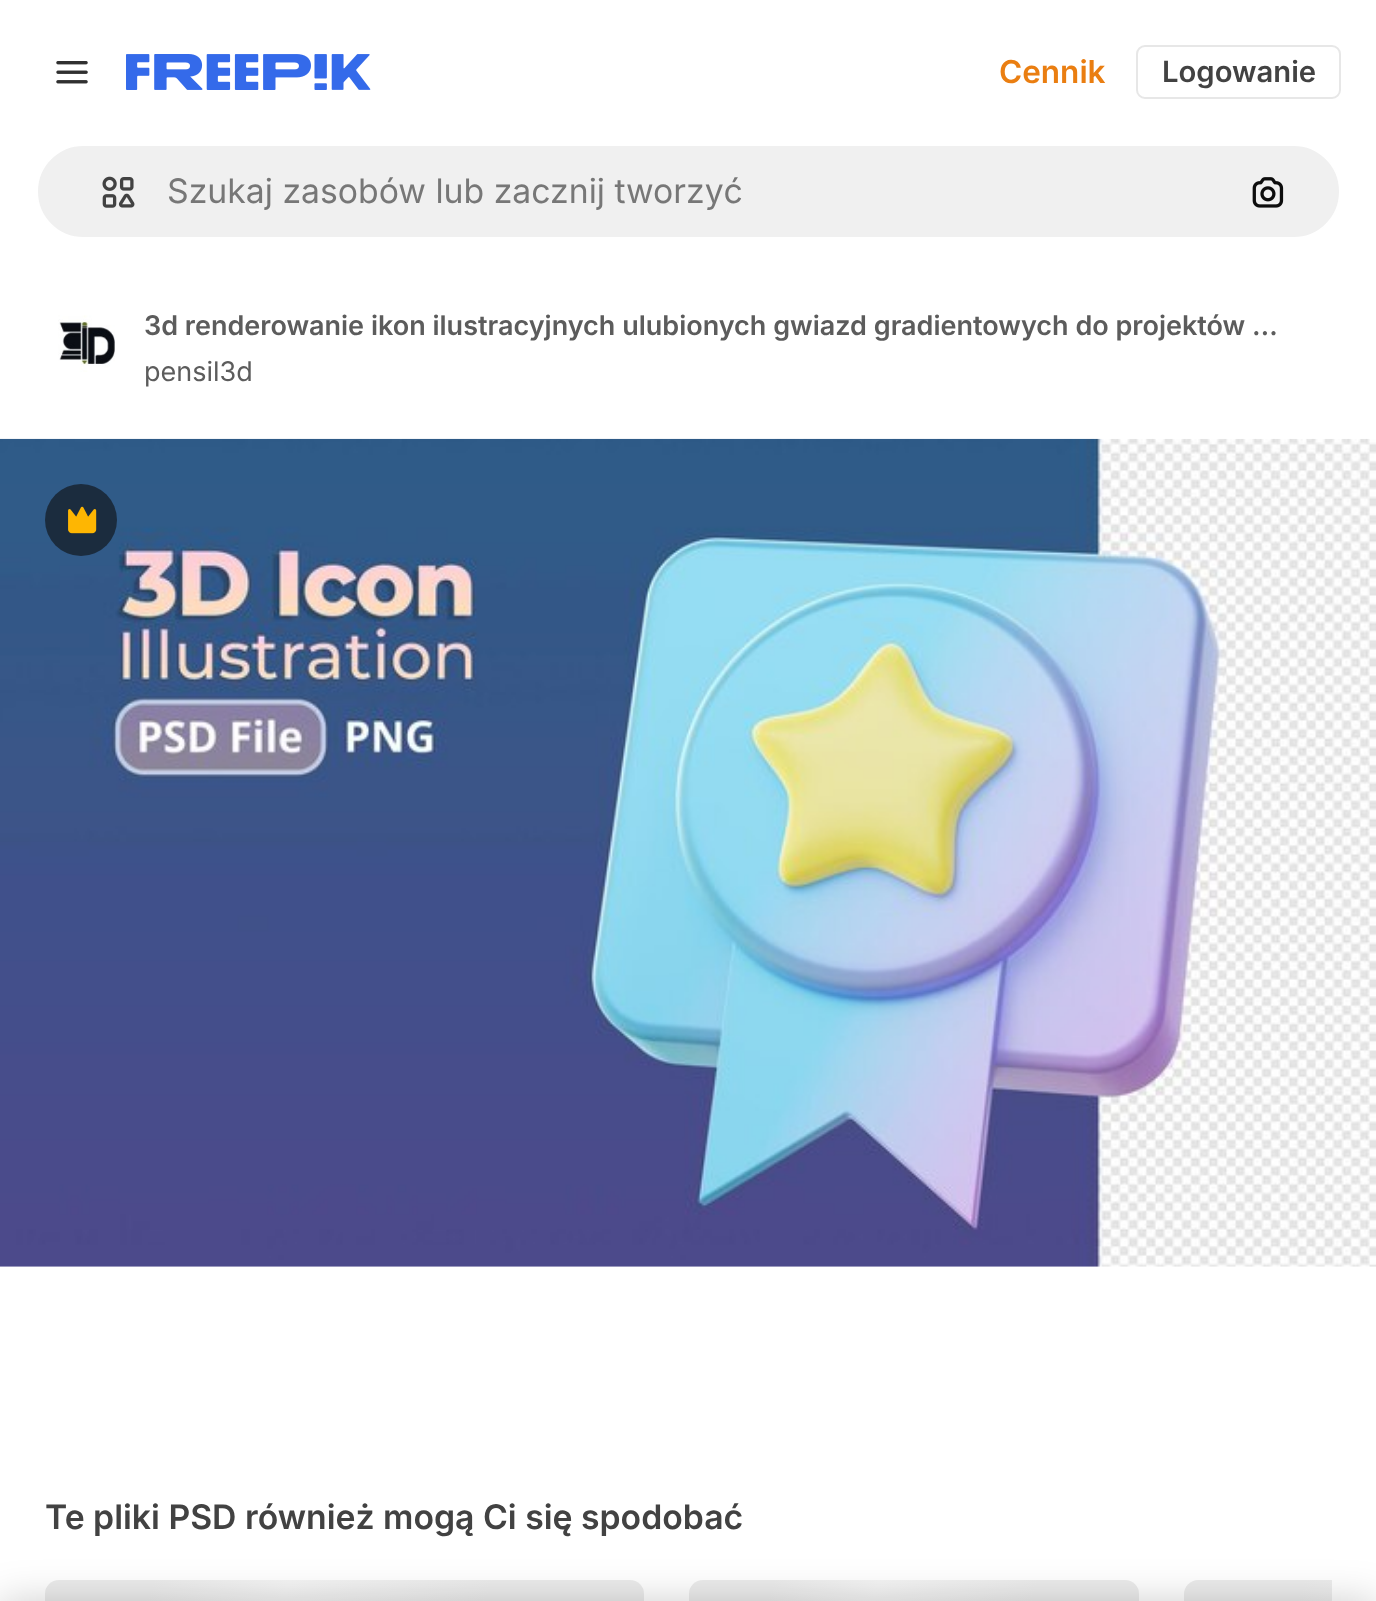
async function draw(canvas) {
  canvas.width = 1376
  canvas.height = 1601
  const ctx = canvas.getContext('2d')
  ctx.miterLimit = 4
  ctx.fontKerning = 'normal'
  async function loadImage(src) {
    const img = new Image()
    img.src = src
    await img.decode()
    return img
  }
  let gradient

  ctx.fillStyle = '#fff'
  ctx.fillRect(0, 0, 1376, 1601)
  ctx.drawImage(await loadImage('image0.png'), 56, 61, 32, 23)
  ctx.drawImage(await loadImage('image1.png'), 126, 54, 245, 36)
  ctx.font = '600 31.5px Inter'
  ctx.fillStyle = '#ea7e11'
  ctx.fillText('Cennik', 999, 83)
  ctx.beginPath()
  ctx.roundRect(1137, 46, 203, 52, 8)
  ctx.strokeStyle = '#e7e7e7'
  ctx.lineWidth = 2
  ctx.stroke()
  ctx.font = '600 29.25px Inter'
  ctx.fillStyle = '#424242'
  ctx.fillText('Logowanie', 1162, 82)
  ctx.fillStyle = '#f0f0f0'
  ctx.beginPath()
  ctx.roundRect(37, 145, 1303, 93, 46.5)
  ctx.fill()
  ctx.strokeStyle = '#fff'
  ctx.stroke()
  ctx.drawImage(await loadImage('image2.png'), 102, 176, 33, 32)
  ctx.font = '33.75px Inter'
  ctx.fillStyle = '#777'
  ctx.fillText('Szukaj zasobów lub zacznij tworzyć', 167, 203)
  ctx.drawImage(await loadImage('image3.png'), 1252, 177, 32, 31)
  ctx.drawImage(await loadImage('image4.png'), 58, 315, 57, 57)
  ctx.font = '600 27px Inter'
  ctx.fillStyle = '#5c5c5c'
  ctx.fillText('3d renderowanie ikon ilustracyjnych ulubionych gwiazd gradientowych do projektów …', 144, 335)
  ctx.font = '27px Inter'
  ctx.fillText('pensil3d', 144, 381)
  ctx.drawImage(await loadImage('image5.png'), 0, 438, 1376, 829)
  ctx.fillStyle = '#1b2c3e'
  ctx.beginPath()
  ctx.arc(81, 520, 36, 0, 2 * Math.PI)
  ctx.fill()
  ctx.drawImage(await loadImage('image6.png'), 68, 506, 29, 28)
  ctx.font = '600 33.75px Inter'
  ctx.fillStyle = '#424242'
  ctx.fillText('Te pliki PSD również mogą Ci się spodobać', 45, 1529)
  gradient = ctx.createLinearGradient(43, 1586, 1244, 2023)
  gradient.addColorStop(0.08, '#ececec')
  gradient.addColorStop(0.18, '#f5f5f5')
  gradient.addColorStop(0.33, '#ececec')
  ctx.fillStyle = gradient
  ctx.beginPath()
  ctx.roundRect(45, 1580, 599, 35, 14)
  ctx.fill()
  gradient = ctx.createLinearGradient(669, 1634, 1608, 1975)
  gradient.addColorStop(0.08, '#ececec')
  gradient.addColorStop(0.18, '#f5f5f5')
  gradient.addColorStop(0.33, '#ececec')
  ctx.fillStyle = gradient
  ctx.beginPath()
  ctx.roundRect(689, 1580, 450, 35, 14)
  ctx.fill()
  gradient = ctx.createLinearGradient(1190, 1561, 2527, 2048)
  gradient.addColorStop(0.08, '#ececec')
  gradient.addColorStop(0.18, '#f5f5f5')
  gradient.addColorStop(0.33, '#ececec')
  ctx.fillStyle = gradient
  ctx.beginPath()
  ctx.moveTo(1198, 1580)
  ctx.lineTo(1332, 1580)
  ctx.lineTo(1332, 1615)
  ctx.lineTo(1198, 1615)
  ctx.bezierCurveTo(1190.5, 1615, 1184, 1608.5, 1184, 1601)
  ctx.lineTo(1184, 1594)
  ctx.bezierCurveTo(1184, 1586.5, 1190.5, 1580, 1198, 1580)
  ctx.closePath()
  ctx.fill()
  ctx.fillStyle = '#00000033'
  ctx.filter = 'blur(20px)'
  ctx.beginPath()
  ctx.rect(0, 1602, 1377, 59)
  ctx.fill()
  ctx.filter = 'none'
}

draw(document.querySelector('canvas'))
